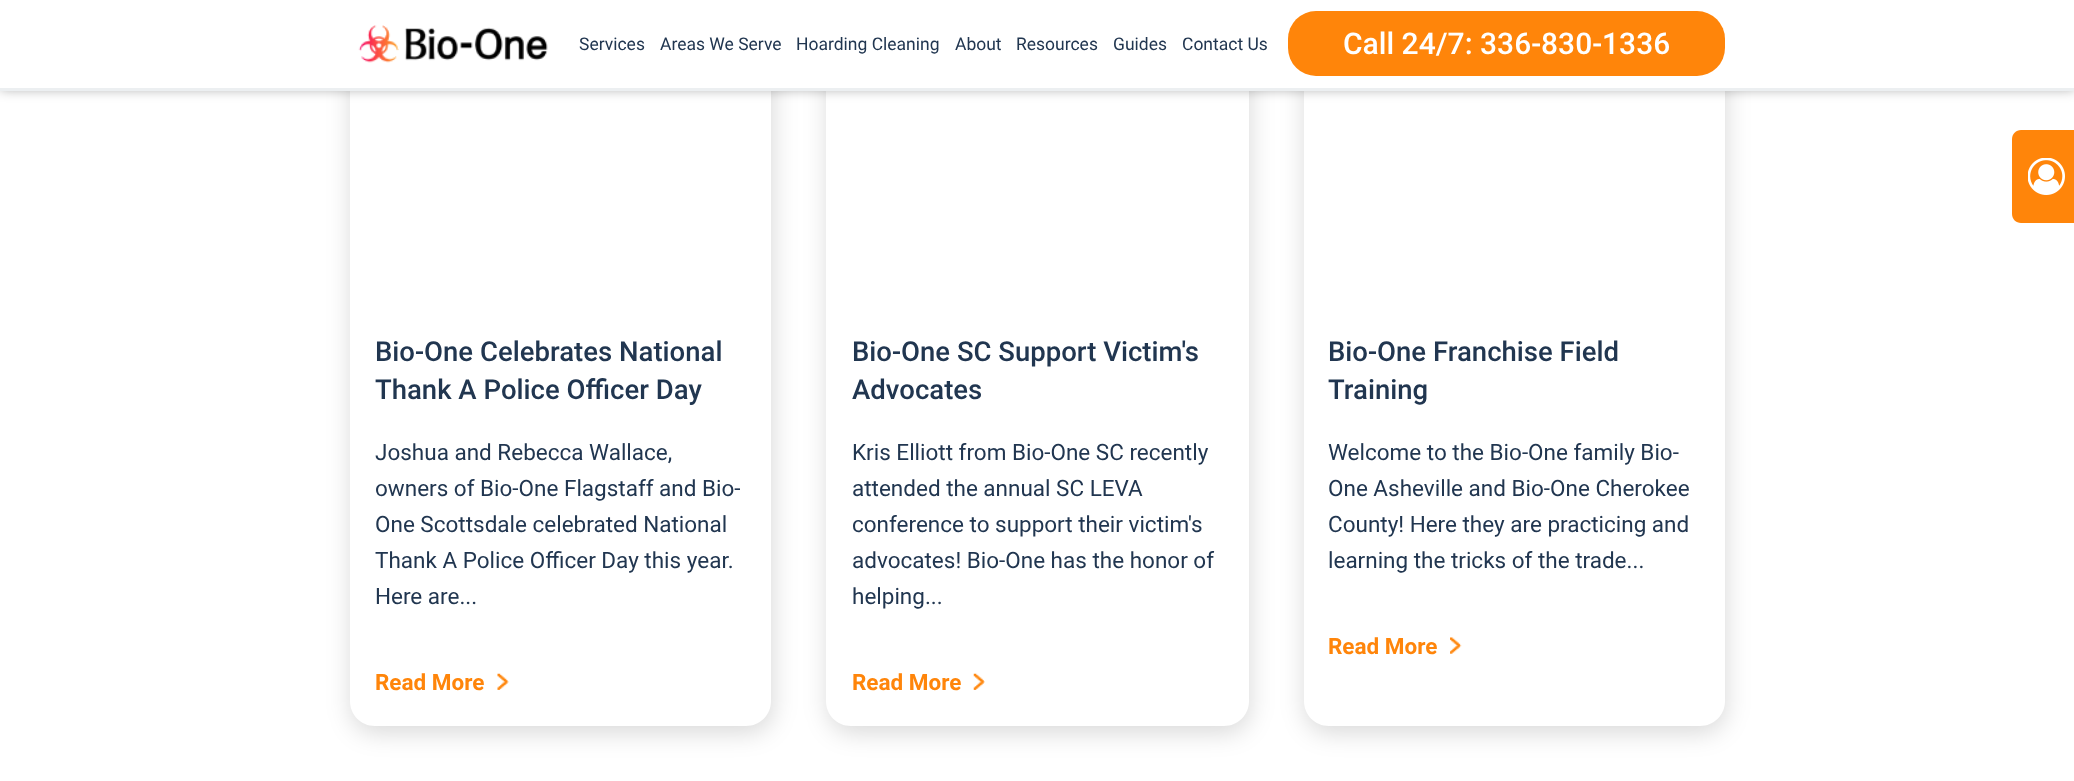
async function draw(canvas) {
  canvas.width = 2074
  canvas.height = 781
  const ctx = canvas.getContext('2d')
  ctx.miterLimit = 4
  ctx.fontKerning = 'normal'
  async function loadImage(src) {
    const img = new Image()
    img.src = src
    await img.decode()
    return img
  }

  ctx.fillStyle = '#fff'
  ctx.fillRect(0, 0, 2074, 781)
  ctx.fillStyle = '#0000004d'
  ctx.filter = 'blur(6px)'
  ctx.beginPath()
  ctx.rect(0, 0, 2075, 90)
  ctx.fill()
  ctx.filter = 'none'
  ctx.save()
  ctx.beginPath()
  ctx.moveTo(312, 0)
  ctx.lineTo(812, 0)
  ctx.lineTo(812, 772)
  ctx.lineTo(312, 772)
  ctx.closePath()
  ctx.moveTo(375, -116)
  ctx.lineTo(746, -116)
  ctx.bezierCurveTo(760, -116, 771, -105, 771, -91)
  ctx.lineTo(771, 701)
  ctx.bezierCurveTo(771, 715, 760, 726, 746, 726)
  ctx.lineTo(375, 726)
  ctx.bezierCurveTo(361, 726, 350, 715, 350, 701)
  ctx.lineTo(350, -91)
  ctx.bezierCurveTo(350, -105, 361, -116, 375, -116)
  ctx.closePath()
  ctx.clip('evenodd')
  ctx.fillStyle = '#00000026'
  ctx.filter = 'blur(12.5px)'
  ctx.beginPath()
  ctx.roundRect(351, -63, 422, 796, 25)
  ctx.fill()
  ctx.filter = 'none'
  ctx.restore()
  ctx.save()
  ctx.beginPath()
  ctx.moveTo(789, 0)
  ctx.lineTo(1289, 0)
  ctx.lineTo(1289, 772)
  ctx.lineTo(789, 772)
  ctx.closePath()
  ctx.moveTo(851, -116)
  ctx.lineTo(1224, -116)
  ctx.bezierCurveTo(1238, -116, 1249, -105, 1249, -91)
  ctx.lineTo(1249, 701)
  ctx.bezierCurveTo(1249, 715, 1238, 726, 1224, 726)
  ctx.lineTo(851, 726)
  ctx.bezierCurveTo(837, 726, 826, 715, 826, 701)
  ctx.lineTo(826, -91)
  ctx.bezierCurveTo(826, -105, 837, -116, 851, -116)
  ctx.closePath()
  ctx.clip('evenodd')
  ctx.fillStyle = '#00000026'
  ctx.filter = 'blur(12.5px)'
  ctx.beginPath()
  ctx.roundRect(828, -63, 422, 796, 25)
  ctx.fill()
  ctx.filter = 'none'
  ctx.restore()
  ctx.save()
  ctx.beginPath()
  ctx.moveTo(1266, 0)
  ctx.lineTo(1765, 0)
  ctx.lineTo(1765, 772)
  ctx.lineTo(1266, 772)
  ctx.closePath()
  ctx.moveTo(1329, -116)
  ctx.lineTo(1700, -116)
  ctx.bezierCurveTo(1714, -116, 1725, -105, 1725, -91)
  ctx.lineTo(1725, 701)
  ctx.bezierCurveTo(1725, 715, 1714, 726, 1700, 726)
  ctx.lineTo(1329, 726)
  ctx.bezierCurveTo(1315, 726, 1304, 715, 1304, 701)
  ctx.lineTo(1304, -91)
  ctx.bezierCurveTo(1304, -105, 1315, -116, 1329, -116)
  ctx.closePath()
  ctx.clip('evenodd')
  ctx.fillStyle = '#00000026'
  ctx.filter = 'blur(12.5px)'
  ctx.beginPath()
  ctx.roundRect(1305, -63, 421, 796, 25)
  ctx.fill()
  ctx.filter = 'none'
  ctx.restore()
  ctx.fillStyle = '#fff'
  ctx.fillRect(0, 0, 2074, 88)
  ctx.fillStyle = '#eceff1'
  ctx.fillRect(0, 88, 2074, 3)
  ctx.drawImage(await loadImage('image0.png'), 358, 25, 190, 38)
  ctx.font = '17.5px Roboto'
  ctx.fillStyle = '#213650'
  ctx.fillText('Services', 579, 50)
  ctx.fillText('Areas We Serve', 660, 50)
  ctx.fillText('Hoarding Cleaning', 796, 50)
  ctx.fillText('About', 955, 50)
  ctx.fillText('Resources', 1016, 50)
  ctx.fillText('Guides', 1113, 50)
  ctx.fillText('Contact Us', 1182, 50)
  ctx.fillStyle = '#ff850a'
  ctx.beginPath()
  ctx.roundRect(1288, 11, 437, 65, 28)
  ctx.fill()
  ctx.font = '500 30px Roboto'
  ctx.fillStyle = '#fff'
  ctx.fillText('Call 24/7: 336-830-1336', 1343, 54)
  ctx.fillStyle = '#ff850a'
  ctx.beginPath()
  ctx.moveTo(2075, 130)
  ctx.lineTo(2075, 223)
  ctx.lineTo(2021, 223)
  ctx.bezierCurveTo(2016, 223, 2012, 219, 2012, 214)
  ctx.lineTo(2012, 139)
  ctx.bezierCurveTo(2012, 134, 2016, 130, 2021, 130)
  ctx.closePath()
  ctx.fill()
  ctx.drawImage(await loadImage('image1.png'), 2028, 158, 37, 37)
  ctx.font = '500 27.5px Roboto'
  ctx.fillStyle = '#213650'
  ctx.fillText('Bio-One Celebrates National', 375, 361)
  ctx.fillText('Thank A Police Officer Day', 375, 399)
  ctx.font = '22.5px Roboto'
  ctx.fillText('Joshua and Rebecca Wallace,', 375, 460)
  ctx.fillText('owners of Bio-One Flagstaff and Bio-', 375, 496)
  ctx.fillText('One Scottsdale celebrated National', 375, 532)
  ctx.fillText('Thank A Police Officer Day this year.', 375, 568)
  ctx.fillText('Here are...', 375, 604)
  ctx.font = 'bold 22.5px Roboto'
  ctx.fillStyle = '#ff850a'
  ctx.fillText('Read More', 375, 690)
  ctx.drawImage(await loadImage('image2.png'), 497, 673, 12, 17)
  ctx.font = '500 27.5px Roboto'
  ctx.fillStyle = '#213650'
  ctx.fillText('Bio-One SC Support Victim\'s', 852, 361)
  ctx.fillText('Advocates', 852, 399)
  ctx.font = '22.5px Roboto'
  ctx.fillText('Kris Elliott from Bio-One SC recently', 852, 460)
  ctx.fillText('attended the annual SC LEVA', 852, 496)
  ctx.fillText('conference to support their victim\'s', 852, 532)
  ctx.fillText('advocates! Bio-One has the honor of', 852, 568)
  ctx.fillText('helping...', 852, 604)
  ctx.font = 'bold 22.5px Roboto'
  ctx.fillStyle = '#ff850a'
  ctx.fillText('Read More', 852, 690)
  ctx.drawImage(await loadImage('image3.png'), 973, 673, 12, 17)
  ctx.font = '500 27.5px Roboto'
  ctx.fillStyle = '#213650'
  ctx.fillText('Bio-One Franchise Field', 1328, 361)
  ctx.fillText('Training', 1328, 399)
  ctx.font = '22.5px Roboto'
  ctx.fillText('Welcome to the Bio-One family Bio-', 1328, 460)
  ctx.fillText('One Asheville and Bio-One Cherokee', 1328, 496)
  ctx.fillText('County! Here they are practicing and', 1328, 532)
  ctx.fillText('learning the tricks of the trade...', 1328, 568)
  ctx.font = 'bold 22.5px Roboto'
  ctx.fillStyle = '#ff850a'
  ctx.fillText('Read More', 1328, 654)
  ctx.drawImage(await loadImage('image4.png'), 1450, 637, 12, 17)
}

draw(document.querySelector('canvas'))
